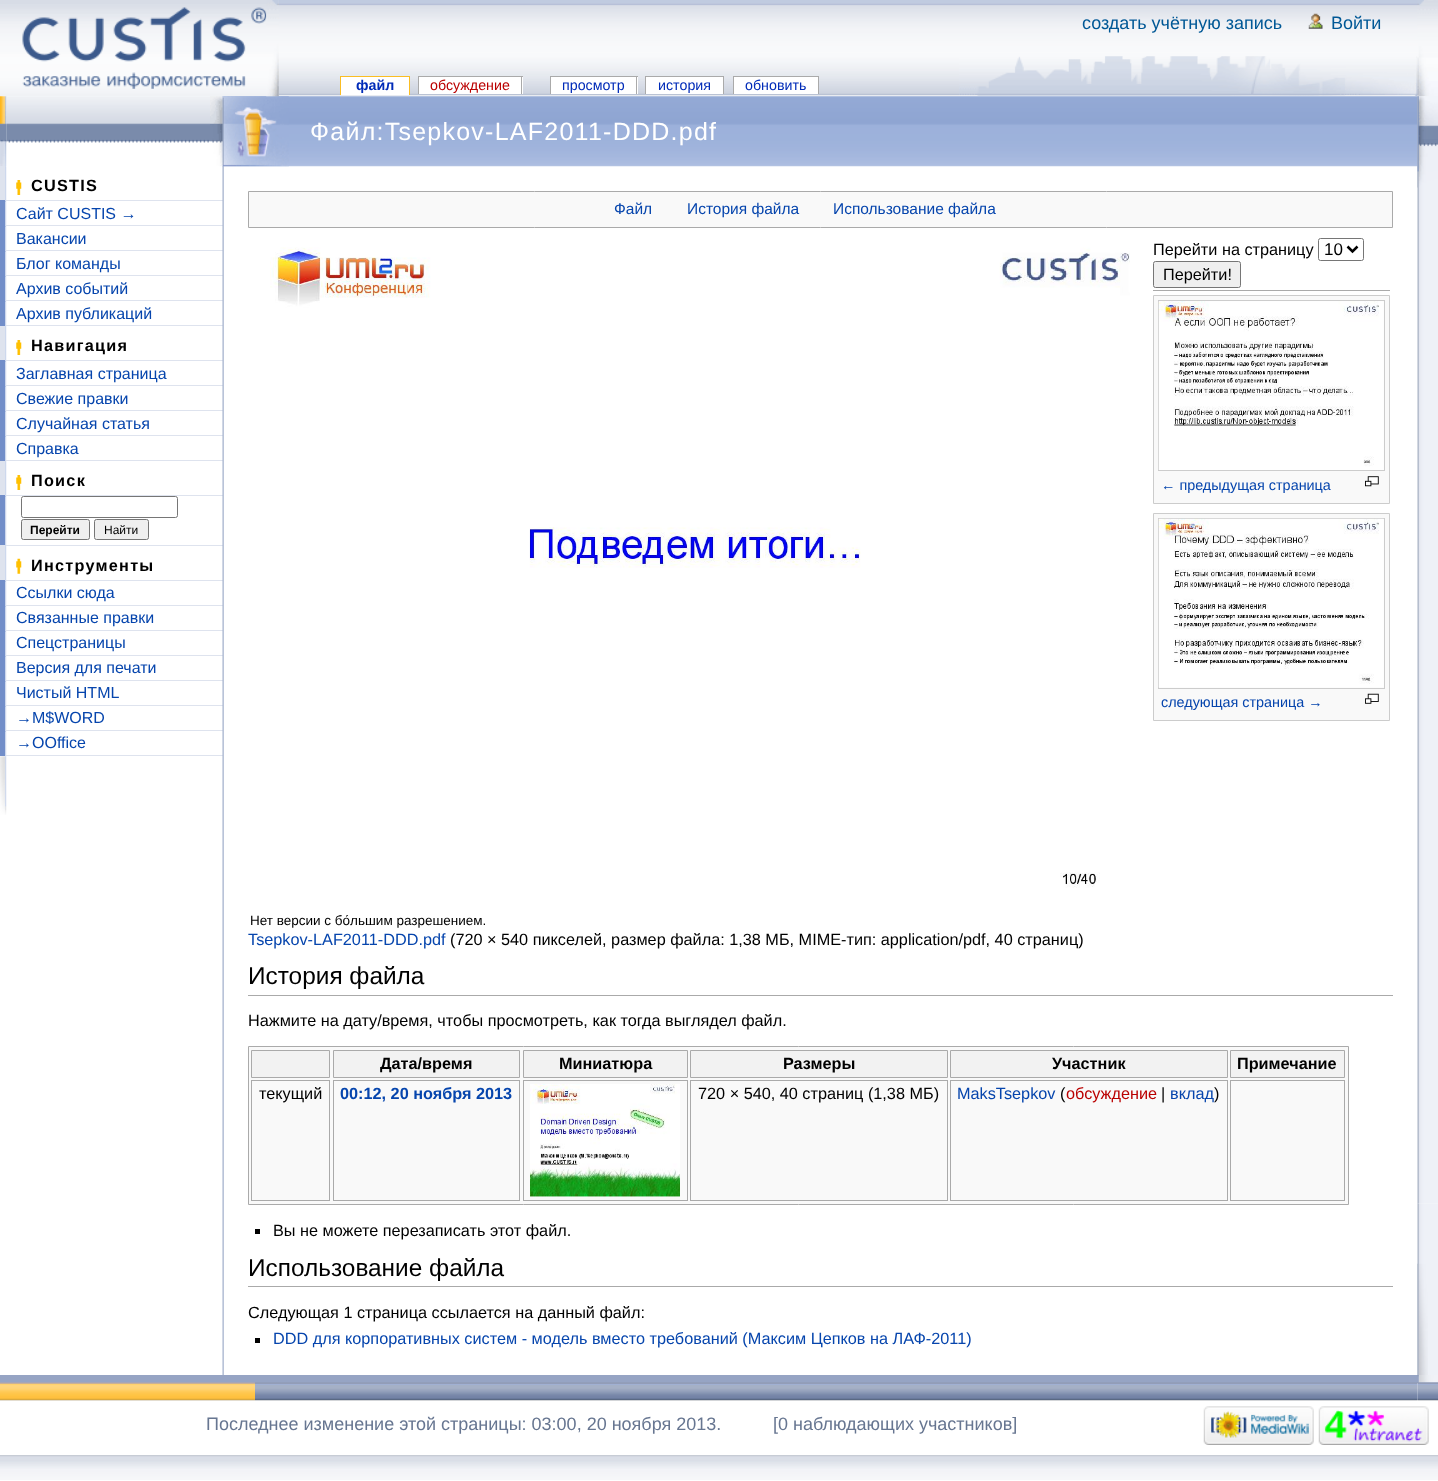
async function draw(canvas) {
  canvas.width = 1438
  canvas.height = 1481
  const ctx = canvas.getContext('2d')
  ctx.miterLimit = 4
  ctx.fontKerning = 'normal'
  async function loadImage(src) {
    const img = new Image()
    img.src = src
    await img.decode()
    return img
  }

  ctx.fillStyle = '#fff'
  ctx.fillRect(0, 0, 1438, 1481)
  ctx.drawImage(await loadImage('image0.png'), 0, 0, 1438, 97)
  ctx.drawImage(await loadImage('image1.png'), 0, 0, 279, 96)
  ctx.drawImage(await loadImage('image2.png'), 22, 7, 245, 82)
  ctx.fillRect(223, 96, 1195, 1)
  ctx.drawImage(await loadImage('image8.png'), 6, 96, 217, 47)
  ctx.fillStyle = '#728ec9'
  ctx.fillRect(0, 200, 6, 1)
  ctx.drawImage(await loadImage('image12.png'), 5, 200, 2, 2)
  ctx.fillStyle = '#dee3ee'
  ctx.fillRect(6, 200, 217, 1)
  ctx.fillStyle = '#728ec9'
  ctx.fillRect(0, 201, 6, 25)
  ctx.drawImage(await loadImage('image12.png'), 5, 225, 2, 2)
  ctx.fillStyle = '#dee3ee'
  ctx.fillRect(6, 225, 217, 1)
  ctx.fillStyle = '#728ec9'
  ctx.fillRect(0, 226, 6, 25)
  ctx.drawImage(await loadImage('image12.png'), 5, 250, 2, 2)
  ctx.fillStyle = '#dee3ee'
  ctx.fillRect(6, 250, 217, 1)
  ctx.fillStyle = '#728ec9'
  ctx.fillRect(0, 251, 6, 25)
  ctx.drawImage(await loadImage('image12.png'), 5, 275, 2, 2)
  ctx.fillStyle = '#dee3ee'
  ctx.fillRect(6, 275, 217, 1)
  ctx.fillStyle = '#728ec9'
  ctx.fillRect(0, 276, 6, 25)
  ctx.drawImage(await loadImage('image12.png'), 5, 300, 2, 2)
  ctx.fillStyle = '#dee3ee'
  ctx.fillRect(6, 300, 217, 1)
  ctx.fillStyle = '#728ec9'
  ctx.fillRect(0, 301, 6, 25)
  ctx.drawImage(await loadImage('image12.png'), 5, 325, 2, 2)
  ctx.fillStyle = '#dee3ee'
  ctx.fillRect(6, 325, 217, 1)
  ctx.fillStyle = '#728ec9'
  ctx.fillRect(0, 360, 6, 1)
  ctx.drawImage(await loadImage('image12.png'), 5, 360, 2, 2)
  ctx.fillStyle = '#dee3ee'
  ctx.fillRect(6, 360, 217, 1)
  ctx.fillStyle = '#728ec9'
  ctx.fillRect(0, 361, 6, 25)
  ctx.drawImage(await loadImage('image12.png'), 5, 385, 2, 2)
  ctx.fillStyle = '#dee3ee'
  ctx.fillRect(6, 385, 217, 1)
  ctx.fillStyle = '#728ec9'
  ctx.fillRect(0, 386, 6, 25)
  ctx.drawImage(await loadImage('image12.png'), 5, 410, 2, 2)
  ctx.fillStyle = '#dee3ee'
  ctx.fillRect(6, 410, 217, 1)
  ctx.fillStyle = '#728ec9'
  ctx.fillRect(0, 411, 6, 25)
  ctx.drawImage(await loadImage('image12.png'), 5, 435, 2, 2)
  ctx.fillStyle = '#dee3ee'
  ctx.fillRect(6, 435, 217, 1)
  ctx.fillStyle = '#728ec9'
  ctx.fillRect(0, 436, 6, 25)
  ctx.drawImage(await loadImage('image12.png'), 5, 460, 2, 2)
  ctx.fillStyle = '#dee3ee'
  ctx.fillRect(6, 460, 217, 1)
  ctx.fillStyle = '#728ec9'
  ctx.fillRect(0, 495, 6, 1)
  ctx.drawImage(await loadImage('image12.png'), 5, 495, 2, 2)
  ctx.fillStyle = '#dee3ee'
  ctx.fillRect(6, 495, 217, 1)
  ctx.fillRect(0, 545, 6, 1)
  ctx.drawImage(await loadImage('image12.png'), 5, 545, 2, 2)
  ctx.fillRect(6, 545, 217, 1)
  ctx.fillStyle = '#728ec9'
  ctx.fillRect(0, 580, 6, 1)
  ctx.drawImage(await loadImage('image12.png'), 5, 580, 2, 2)
  ctx.fillStyle = '#dee3ee'
  ctx.fillRect(6, 580, 217, 1)
  ctx.fillStyle = '#728ec9'
  ctx.fillRect(0, 581, 6, 25)
  ctx.drawImage(await loadImage('image12.png'), 5, 605, 2, 2)
  ctx.fillStyle = '#dee3ee'
  ctx.fillRect(6, 605, 217, 1)
  ctx.fillStyle = '#728ec9'
  ctx.fillRect(0, 606, 6, 25)
  ctx.drawImage(await loadImage('image12.png'), 5, 630, 2, 2)
  ctx.fillStyle = '#dee3ee'
  ctx.fillRect(6, 630, 217, 1)
  ctx.fillStyle = '#728ec9'
  ctx.fillRect(0, 631, 6, 25)
  ctx.drawImage(await loadImage('image12.png'), 5, 655, 2, 2)
  ctx.fillStyle = '#dee3ee'
  ctx.fillRect(6, 655, 217, 1)
  ctx.fillStyle = '#728ec9'
  ctx.fillRect(0, 656, 6, 25)
  ctx.drawImage(await loadImage('image12.png'), 5, 680, 2, 2)
  ctx.fillStyle = '#dee3ee'
  ctx.fillRect(6, 680, 217, 1)
  ctx.fillStyle = '#728ec9'
  ctx.fillRect(0, 681, 6, 25)
  ctx.drawImage(await loadImage('image12.png'), 5, 705, 2, 2)
  ctx.fillStyle = '#dee3ee'
  ctx.fillRect(6, 705, 217, 1)
  ctx.fillStyle = '#728ec9'
  ctx.fillRect(0, 706, 6, 25)
  ctx.drawImage(await loadImage('image12.png'), 5, 730, 2, 2)
  ctx.fillStyle = '#dee3ee'
  ctx.fillRect(6, 730, 217, 1)
  ctx.fillStyle = '#728ec9'
  ctx.fillRect(0, 731, 6, 25)
  ctx.drawImage(await loadImage('image12.png'), 5, 755, 2, 2)
  ctx.fillStyle = '#dee3ee'
  ctx.fillRect(6, 755, 217, 1)
  ctx.drawImage(await loadImage('image18.png'), 222, 96, 2, 1279)
  ctx.drawImage(await loadImage('image19.png'), 222, 96, 1196, 71)
  ctx.drawImage(await loadImage('image20.png'), 222, 96, 67, 71)
  ctx.drawImage(await loadImage('image3.png'), 266, 0, 13, 97)
  ctx.font = '18px Liberation Sans'
  ctx.fillStyle = '#005896'
  ctx.fillText('создать учётную запись', 1082, 29)
  ctx.drawImage(await loadImage('image4.png'), 1308, 13, 15, 16)
  ctx.fillText('Войти', 1331, 29)
  ctx.drawImage(await loadImage('image6.png'), 959, 56, 459, 40)
  ctx.drawImage(await loadImage('image28.png'), 1417, 96, 21, 1108)
  ctx.drawImage(await loadImage('image5.png'), 1417, 0, 21, 97)
  ctx.fillStyle = '#fff'
  ctx.fillRect(341, 77, 68, 18)
  ctx.font = 'bold 14.25px Liberation Sans'
  ctx.fillStyle = '#002bb8'
  ctx.fillText('файл', 356, 90)
  ctx.fillStyle = '#fabd23'
  ctx.fillRect(340, 76, 70, 1)
  ctx.fillRect(409, 76, 1, 19)
  ctx.fillRect(340, 76, 1, 19)
  ctx.fillStyle = '#fff'
  ctx.fillRect(419, 77, 104, 17)
  ctx.font = '14.25px Liberation Sans'
  ctx.fillStyle = '#ba0000'
  ctx.fillText('обсуждение', 430, 90)
  ctx.fillStyle = '#aaa'
  ctx.fillRect(418, 76, 105, 1)
  ctx.fillRect(521, 76, 1, 18)
  ctx.fillRect(418, 76, 1, 18)
  ctx.fillStyle = '#fff'
  ctx.fillRect(551, 77, 87, 17)
  ctx.fillStyle = '#002bb8'
  ctx.fillText('просмотр', 562, 90)
  ctx.fillStyle = '#aaa'
  ctx.fillRect(550, 76, 88, 1)
  ctx.fillRect(636, 76, 1, 18)
  ctx.fillRect(550, 76, 1, 18)
  ctx.fillStyle = '#fff'
  ctx.fillRect(646, 77, 77, 17)
  ctx.fillStyle = '#002bb8'
  ctx.fillText('история', 658, 90)
  ctx.fillStyle = '#aaa'
  ctx.fillRect(645, 76, 79, 1)
  ctx.fillRect(723, 76, 1, 18)
  ctx.fillRect(645, 76, 1, 18)
  ctx.fillStyle = '#fff'
  ctx.fillRect(734, 77, 84, 17)
  ctx.fillStyle = '#002bb8'
  ctx.fillText('обновить', 745, 90)
  ctx.fillStyle = '#aaa'
  ctx.fillRect(733, 76, 86, 1)
  ctx.fillRect(818, 76, 1, 18)
  ctx.fillRect(733, 76, 1, 18)
  ctx.drawImage(await loadImage('image7.png'), 0, 96, 7, 70)
  ctx.drawImage(await loadImage('image9.png'), 210, 96, 13, 71)
  ctx.fillStyle = '#dee3ee'
  ctx.fillRect(0, 166, 6, 34)
  ctx.drawImage(await loadImage('image10.png'), 5, 166, 2, 34)
  ctx.drawImage(await loadImage('image11.png'), 16, 180, 6, 15)
  ctx.letterSpacing = '1.25px'
  ctx.font = 'bold 16.25px Liberation Sans'
  ctx.fillStyle = '#000'
  ctx.fillText('CUSTIS', 31, 191)
  ctx.drawImage(await loadImage('image13.png'), 5, 201, 2, 24)
  ctx.letterSpacing = '0px'
  ctx.font = '16px Liberation Sans'
  ctx.fillStyle = '#0645ad'
  ctx.fillText('Сайт CUSTIS →', 16, 219)
  ctx.drawImage(await loadImage('image13.png'), 5, 226, 2, 24)
  ctx.fillText('Вакансии', 16, 244)
  ctx.drawImage(await loadImage('image13.png'), 5, 251, 2, 24)
  ctx.fillText('Блог команды', 16, 269)
  ctx.drawImage(await loadImage('image13.png'), 5, 276, 2, 24)
  ctx.fillText('Архив событий', 16, 294)
  ctx.drawImage(await loadImage('image13.png'), 5, 301, 2, 24)
  ctx.fillText('Архив публикаций', 16, 319)
  ctx.fillStyle = '#dee3ee'
  ctx.fillRect(0, 326, 6, 34)
  ctx.drawImage(await loadImage('image14.png'), 5, 326, 2, 34)
  ctx.drawImage(await loadImage('image11.png'), 16, 340, 6, 15)
  ctx.letterSpacing = '1.25px'
  ctx.font = 'bold 16.25px Liberation Sans'
  ctx.fillStyle = '#000'
  ctx.fillText('Навигация', 31, 351)
  ctx.drawImage(await loadImage('image13.png'), 5, 361, 2, 24)
  ctx.letterSpacing = '0px'
  ctx.font = '16px Liberation Sans'
  ctx.fillStyle = '#0645ad'
  ctx.fillText('Заглавная страница', 16, 379)
  ctx.drawImage(await loadImage('image13.png'), 5, 386, 2, 24)
  ctx.fillText('Свежие правки', 16, 404)
  ctx.drawImage(await loadImage('image13.png'), 5, 411, 2, 24)
  ctx.fillText('Случайная статья', 16, 429)
  ctx.drawImage(await loadImage('image13.png'), 5, 436, 2, 24)
  ctx.fillText('Справка', 16, 454)
  ctx.fillStyle = '#dee3ee'
  ctx.fillRect(0, 461, 6, 34)
  ctx.drawImage(await loadImage('image14.png'), 5, 461, 2, 34)
  ctx.drawImage(await loadImage('image11.png'), 16, 475, 6, 15)
  ctx.letterSpacing = '1.25px'
  ctx.font = 'bold 16.25px Liberation Sans'
  ctx.fillStyle = '#000'
  ctx.fillText('Поиск', 31, 486)
  ctx.fillStyle = '#728ec9'
  ctx.fillRect(0, 496, 6, 49)
  ctx.drawImage(await loadImage('image15.png'), 5, 496, 2, 49)
  ctx.beginPath()
  ctx.roundRect(21.5, 496.5, 156, 21, 2)
  ctx.strokeStyle = '#767676'
  ctx.stroke()
  ctx.fillStyle = '#efefef'
  ctx.beginPath()
  ctx.roundRect(21.5, 519.5, 68, 20, 2)
  ctx.fill()
  ctx.stroke()
  ctx.letterSpacing = '0px'
  ctx.font = 'bold 12px Liberation Sans'
  ctx.fillStyle = '#000'
  ctx.fillText('Перейти', 30, 534)
  ctx.fillStyle = '#efefef'
  ctx.beginPath()
  ctx.roundRect(94.5, 519.5, 54, 20, 2)
  ctx.fill()
  ctx.stroke()
  ctx.font = '12px Liberation Sans'
  ctx.fillStyle = '#000'
  ctx.fillText('Найти', 104, 534)
  ctx.fillStyle = '#dee3ee'
  ctx.fillRect(0, 546, 6, 34)
  ctx.drawImage(await loadImage('image14.png'), 5, 546, 2, 34)
  ctx.drawImage(await loadImage('image16.png'), 16, 558, 6, 16)
  ctx.letterSpacing = '1.25px'
  ctx.font = 'bold 16.25px Liberation Sans'
  ctx.fillStyle = '#000'
  ctx.fillText('Инструменты', 31, 571)
  ctx.drawImage(await loadImage('image13.png'), 5, 581, 2, 24)
  ctx.letterSpacing = '0px'
  ctx.font = '16px Liberation Sans'
  ctx.fillStyle = '#0645ad'
  ctx.fillText('Ссылки сюда', 16, 598)
  ctx.drawImage(await loadImage('image13.png'), 5, 606, 2, 24)
  ctx.fillText('Связанные правки', 16, 623)
  ctx.drawImage(await loadImage('image13.png'), 5, 631, 2, 24)
  ctx.fillText('Спецстраницы', 16, 648)
  ctx.drawImage(await loadImage('image13.png'), 5, 656, 2, 24)
  ctx.fillText('Версия для печати', 16, 673)
  ctx.drawImage(await loadImage('image13.png'), 5, 681, 2, 24)
  ctx.fillText('Чистый HTML', 16, 698)
  ctx.drawImage(await loadImage('image13.png'), 5, 706, 2, 24)
  ctx.fillText('→M$WORD', 16, 723)
  ctx.drawImage(await loadImage('image13.png'), 5, 731, 2, 24)
  ctx.fillText('→OOffice', 16, 748)
  ctx.drawImage(await loadImage('image17.png'), 0, 756, 7, 59)
  ctx.letterSpacing = '1.25px'
  ctx.font = '25px Liberation Sans'
  ctx.fillStyle = '#fff'
  ctx.fillText('Файл:Tsepkov-LAF2011-DDD.pdf', 310, 140)
  ctx.fillStyle = '#f9f9f9'
  ctx.beginPath()
  ctx.rect(248.5, 191.5, 1144, 36)
  ctx.fill()
  ctx.strokeStyle = '#aaa'
  ctx.stroke()
  ctx.letterSpacing = '0px'
  ctx.font = '15.5px Liberation Sans'
  ctx.fillStyle = '#0645ad'
  ctx.fillText('Файл', 614, 214)
  ctx.fillText('История файла', 687, 214)
  ctx.fillText('Использование файла', 833, 214)
  ctx.font = '16.25px Liberation Sans'
  ctx.fillStyle = '#000'
  ctx.fillText('Перейти на страницу', 1153, 255)
  ctx.beginPath()
  ctx.roundRect(1318.5, 238.5, 45, 22, 2)
  ctx.strokeStyle = '#767676'
  ctx.stroke()
  ctx.beginPath()
  ctx.moveTo(1347.5, 246.5)
  ctx.lineTo(1352.5, 251.5)
  ctx.lineTo(1357.5, 246.5)
  ctx.strokeStyle = '#000'
  ctx.lineWidth = 2.5
  ctx.stroke()
  ctx.font = '17px Liberation Sans'
  ctx.fillText('10', 1324, 255)
  ctx.fillStyle = '#efefef'
  ctx.beginPath()
  ctx.roundRect(1153.5, 261.5, 87, 26, 2)
  ctx.fill()
  ctx.strokeStyle = '#767676'
  ctx.lineWidth = 1
  ctx.stroke()
  ctx.font = '16.25px Liberation Sans'
  ctx.fillStyle = '#000'
  ctx.fillText('Перейти!', 1163, 280)
  ctx.fillStyle = '#aaa'
  ctx.fillRect(1153, 290, 237, 1)
  ctx.fillStyle = '#f9f9f9'
  ctx.beginPath()
  ctx.rect(1153.5, 295.5, 236, 208)
  ctx.fill()
  ctx.strokeStyle = '#ccc'
  ctx.stroke()
  ctx.strokeRect(1158.5, 300.5, 226, 170)
  ctx.drawImage(await loadImage('image21.png'), 1158, 301, 226, 169)
  ctx.font = '14.4px Liberation Sans'
  ctx.fillStyle = '#0645ad'
  ctx.fillText('← предыдущая страница', 1161, 490)
  ctx.drawImage(await loadImage('image22.png'), 1365, 476, 14, 11)
  ctx.fillStyle = '#f9f9f9'
  ctx.beginPath()
  ctx.rect(1153.5, 513.5, 236, 207)
  ctx.fill()
  ctx.stroke()
  ctx.strokeRect(1158.5, 518.5, 226, 170)
  ctx.drawImage(await loadImage('image23.png'), 1158, 518, 226, 170)
  ctx.fillStyle = '#0645ad'
  ctx.fillText('следующая страница →', 1161, 707)
  ctx.drawImage(await loadImage('image24.png'), 1365, 693, 14, 11)
  ctx.drawImage(await loadImage('image25.png'), 270, 247, 860, 641)
  ctx.font = '13.5px Liberation Sans'
  ctx.fillStyle = '#000'
  ctx.fillText('Нет версии с бо́льшим разрешением.', 250, 925)
  ctx.font = '16.25px Liberation Sans'
  ctx.fillStyle = '#0645ad'
  ctx.fillText('Tsepkov-LAF2011-DDD.pdf', 248, 945)
  ctx.fillStyle = '#000'
  ctx.fillText('(720 × 540 пикселей, размер файла: 1,38 МБ, MIME-тип: application/pdf, 40 страниц)', 450, 945)
  ctx.fillStyle = '#aaa'
  ctx.fillRect(248, 995, 1145, 1)
  ctx.font = '24.4px Liberation Sans'
  ctx.fillStyle = '#000'
  ctx.fillText('История файла', 248, 984)
  ctx.font = '16.25px Liberation Sans'
  ctx.fillText('Нажмите на дату/время, чтобы просмотреть, как тогда выглядел файл.', 248, 1026)
  ctx.fillStyle = '#f9f9f9'
  ctx.beginPath()
  ctx.rect(248.5, 1046.5, 1100, 158)
  ctx.fill()
  ctx.strokeStyle = '#aaa'
  ctx.stroke()
  ctx.fillStyle = '#f2f2f2'
  ctx.beginPath()
  ctx.rect(251.5, 1050.5, 78, 27)
  ctx.fill()
  ctx.stroke()
  ctx.beginPath()
  ctx.rect(333.5, 1050.5, 186, 27)
  ctx.fill()
  ctx.stroke()
  ctx.font = 'bold 16.25px Liberation Sans'
  ctx.fillStyle = '#000'
  ctx.fillText('Дата/время', 380, 1069)
  ctx.fillStyle = '#f2f2f2'
  ctx.beginPath()
  ctx.rect(523.5, 1050.5, 164, 27)
  ctx.fill()
  ctx.stroke()
  ctx.fillStyle = '#000'
  ctx.fillText('Миниатюра', 559, 1069)
  ctx.fillStyle = '#f2f2f2'
  ctx.beginPath()
  ctx.rect(690.5, 1050.5, 257, 27)
  ctx.fill()
  ctx.stroke()
  ctx.fillStyle = '#000'
  ctx.fillText('Размеры', 783, 1069)
  ctx.fillStyle = '#f2f2f2'
  ctx.beginPath()
  ctx.rect(950.5, 1050.5, 277, 27)
  ctx.fill()
  ctx.stroke()
  ctx.fillStyle = '#000'
  ctx.fillText('Участник', 1052, 1069)
  ctx.fillStyle = '#f2f2f2'
  ctx.beginPath()
  ctx.rect(1230.5, 1050.5, 114, 27)
  ctx.fill()
  ctx.stroke()
  ctx.fillStyle = '#000'
  ctx.fillText('Примечание', 1237, 1069)
  ctx.strokeRect(251.5, 1080.5, 78, 120)
  ctx.font = '16.25px Liberation Sans'
  ctx.fillText('текущий', 259, 1099)
  ctx.strokeRect(333.5, 1080.5, 186, 120)
  ctx.font = 'bold 16.25px Liberation Sans'
  ctx.fillStyle = '#0645ad'
  ctx.fillText('00:12, 20 ноября 2013', 340, 1099)
  ctx.strokeRect(523.5, 1080.5, 164, 120)
  ctx.drawImage(await loadImage('image26.png'), 530, 1084, 150, 113)
  ctx.drawImage(await loadImage('image27.png'), 530, 1196, 150, 1)
  ctx.strokeRect(690.5, 1080.5, 257, 120)
  ctx.font = '16.25px Liberation Sans'
  ctx.fillStyle = '#000'
  ctx.fillText('720 × 540, 40 страниц (1,38 МБ)', 698, 1099)
  ctx.strokeRect(950.5, 1080.5, 277, 120)
  ctx.fillStyle = '#0645ad'
  ctx.fillText('MaksTsepkov', 957, 1099)
  ctx.fillStyle = '#000'
  ctx.fillText('(', 1060, 1099)
  ctx.fillStyle = '#ba0000'
  ctx.fillText('обсуждение', 1066, 1099)
  ctx.fillStyle = '#000'
  ctx.fillText('|', 1161, 1099)
  ctx.fillStyle = '#0645ad'
  ctx.fillText('вклад', 1170, 1099)
  ctx.fillStyle = '#000'
  ctx.fillText(')', 1214, 1099)
  ctx.strokeRect(1230.5, 1080.5, 114, 120)
  ctx.fillRect(255, 1229, 5, 5)
  ctx.fillText('Вы не можете перезаписать этот файл.', 273, 1236)
  ctx.fillStyle = '#aaa'
  ctx.fillRect(248, 1286, 1145, 1)
  ctx.font = '24.4px Liberation Sans'
  ctx.fillStyle = '#000'
  ctx.fillText('Использование файла', 248, 1276)
  ctx.font = '16.25px Liberation Sans'
  ctx.fillText('Следующая 1 страница ссылается на данный файл:', 248, 1318)
  ctx.fillRect(255, 1338, 5, 5)
  ctx.fillStyle = '#0645ad'
  ctx.fillText('DDD для корпоративных систем - модель вместо требований (Максим Цепков на ЛАФ-2011)', 273, 1344)
  ctx.drawImage(await loadImage('image29.png'), 1417, 96, 21, 92)
  ctx.drawImage(await loadImage('image30.png'), 1417, 1203, 21, 172)
  ctx.drawImage(await loadImage('image31.png'), 1417, 1263, 11, 112)
  ctx.fillStyle = '#96a4c4'
  ctx.fillRect(0, 1375, 1438, 8)
  ctx.drawImage(await loadImage('image32.png'), 1417, 1375, 21, 8)
  ctx.drawImage(await loadImage('image33.png'), 0, 1382, 255, 19)
  ctx.drawImage(await loadImage('image34.png'), 255, 1382, 1163, 19)
  ctx.drawImage(await loadImage('image35.png'), 1417, 1382, 21, 19)
  ctx.font = '18px Liberation Sans'
  ctx.fillStyle = '#677691'
  ctx.fillText('Последнее изменение этой страницы: 03:00, 20 ноября 2013.', 206, 1430)
  ctx.fillText('[0 наблюдающих участников]', 773, 1430)
  ctx.drawImage(await loadImage('image36.png'), 1203, 1406, 111, 39)
  ctx.drawImage(await loadImage('image37.png'), 1318, 1406, 111, 39)
  ctx.drawImage(await loadImage('image38.png'), 0, 1455, 1438, 25)
}

draw(document.querySelector('canvas'))
